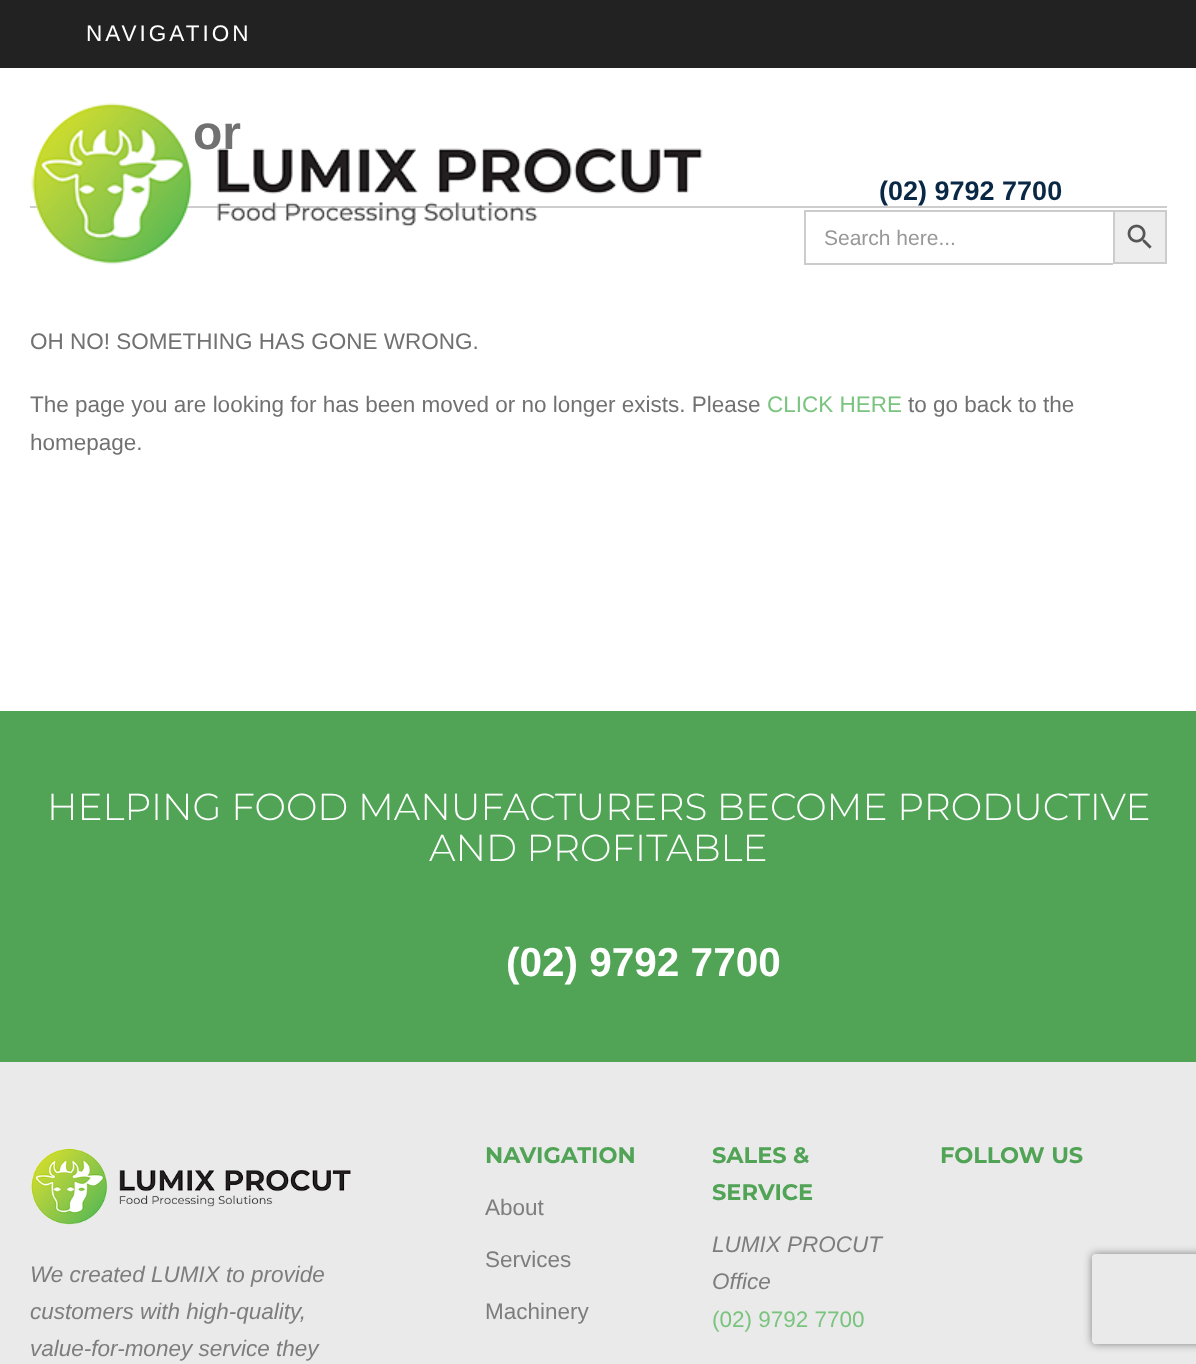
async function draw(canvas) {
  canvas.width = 1196
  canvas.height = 1364
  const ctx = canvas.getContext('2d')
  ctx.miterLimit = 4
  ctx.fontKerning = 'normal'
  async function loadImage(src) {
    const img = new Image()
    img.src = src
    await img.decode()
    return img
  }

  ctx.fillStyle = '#fff'
  ctx.fillRect(0, 0, 1196, 1364)
  ctx.fillStyle = '#222'
  ctx.fillRect(0, 0, 1196, 68)
  ctx.letterSpacing = '3px'
  ctx.font = '22.5px Liberation Sans'
  ctx.fillStyle = '#fff'
  ctx.fillText('NAVIGATION', 86, 41)
  ctx.letterSpacing = '0px'
  ctx.font = 'bold 48px Liberation Sans'
  ctx.fillStyle = '#717171'
  ctx.fillText('or', 193, 149)
  ctx.fillStyle = '#cdcdcd'
  ctx.fillRect(30, 206, 1137, 2)
  ctx.drawImage(await loadImage('image0.png'), 31, 103, 672, 162)
  ctx.font = 'bold 27px Liberation Sans'
  ctx.fillStyle = '#092845'
  ctx.fillText('(02) 9792 7700', 879, 200)
  ctx.fillStyle = '#ccc'
  ctx.fillRect(804, 210, 309, 2)
  ctx.fillRect(804, 263, 309, 2)
  ctx.fillRect(804, 210, 2, 54)
  ctx.font = '21px Liberation Sans'
  ctx.fillStyle = '#989898'
  ctx.fillText('Search here...', 824, 245)
  ctx.fillStyle = '#ededed'
  ctx.beginPath()
  ctx.rect(1114, 211, 52, 52)
  ctx.fill()
  ctx.strokeStyle = '#ccc'
  ctx.lineWidth = 2
  ctx.stroke()
  ctx.drawImage(await loadImage('image1.png'), 1127, 224, 25, 25)
  ctx.font = '22.5px Liberation Sans'
  ctx.fillStyle = '#717171'
  ctx.fillText('OH NO! SOMETHING HAS GONE WRONG.', 30, 349)
  ctx.fillText('The page you are looking for has been moved or no longer exists. Please', 30, 412)
  ctx.fillStyle = '#7ac47f'
  ctx.fillText('CLICK HERE', 767, 412)
  ctx.fillStyle = '#717171'
  ctx.fillText('to go back to the', 908, 412)
  ctx.fillText('homepage.', 30, 450)
  ctx.fillStyle = '#51a356'
  ctx.fillRect(0, 711, 1196, 351)
  ctx.font = '300 37.5px Montserrat'
  ctx.fillStyle = '#fff'
  ctx.fillText('HELPING FOOD MANUFACTURERS BECOME PRODUCTIVE', 47, 820)
  ctx.fillText('AND PROFITABLE', 429, 861)
  ctx.font = 'bold 40.5px Liberation Sans'
  ctx.fillText('(02) 9792 7700', 506, 976)
  ctx.fillStyle = '#eaeaea'
  ctx.fillRect(0, 1062, 1196, 302)
  ctx.font = 'bold 22.5px Montserrat'
  ctx.fillStyle = '#51a356'
  ctx.fillText('NAVIGATION', 485, 1163)
  ctx.font = '22.5px Liberation Sans'
  ctx.fillStyle = '#7d7d7d'
  ctx.fillText('About', 485, 1215)
  ctx.fillText('Services', 485, 1267)
  ctx.fillText('Machinery', 485, 1319)
  ctx.font = 'bold 22.5px Montserrat'
  ctx.fillStyle = '#51a356'
  ctx.fillText('SALES &', 712, 1163)
  ctx.fillText('SERVICE', 712, 1200)
  ctx.font = 'italic 22.5px Liberation Sans'
  ctx.fillStyle = '#7d7d7d'
  ctx.fillText('LUMIX PROCUT', 712, 1252)
  ctx.fillText('Office', 712, 1289)
  ctx.font = '22.5px Liberation Sans'
  ctx.fillStyle = '#7ac47f'
  ctx.fillText('(02) 9792 7700', 712, 1327)
  ctx.font = 'bold 22.5px Montserrat'
  ctx.fillStyle = '#51a356'
  ctx.fillText('FOLLOW US', 940, 1163)
  ctx.drawImage(await loadImage('image2.png'), 30, 1148, 321, 77)
  ctx.font = 'italic 22.5px Liberation Sans'
  ctx.fillStyle = '#7d7d7d'
  ctx.fillText('We created LUMIX to provide', 30, 1282)
  ctx.fillText('customers with high-quality,', 30, 1319)
  ctx.fillText('value-for-money service they', 30, 1356)
  ctx.save()
  ctx.beginPath()
  ctx.moveTo(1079, 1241)
  ctx.lineTo(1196, 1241)
  ctx.lineTo(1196, 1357)
  ctx.lineTo(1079, 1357)
  ctx.closePath()
  ctx.moveTo(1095, 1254)
  ctx.lineTo(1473, 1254)
  ctx.bezierCurveTo(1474.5, 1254, 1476, 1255.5, 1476, 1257)
  ctx.lineTo(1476, 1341)
  ctx.bezierCurveTo(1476, 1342.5, 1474.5, 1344, 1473, 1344)
  ctx.lineTo(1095, 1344)
  ctx.bezierCurveTo(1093.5, 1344, 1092, 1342.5, 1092, 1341)
  ctx.lineTo(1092, 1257)
  ctx.bezierCurveTo(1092, 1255.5, 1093.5, 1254, 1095, 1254)
  ctx.closePath()
  ctx.clip('evenodd')
  ctx.fillStyle = '#808080'
  ctx.filter = 'blur(4px)'
  ctx.beginPath()
  ctx.roundRect(1092, 1254, 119, 90, 3)
  ctx.fill()
  ctx.filter = 'none'
  ctx.restore()
}

draw(document.querySelector('canvas'))
